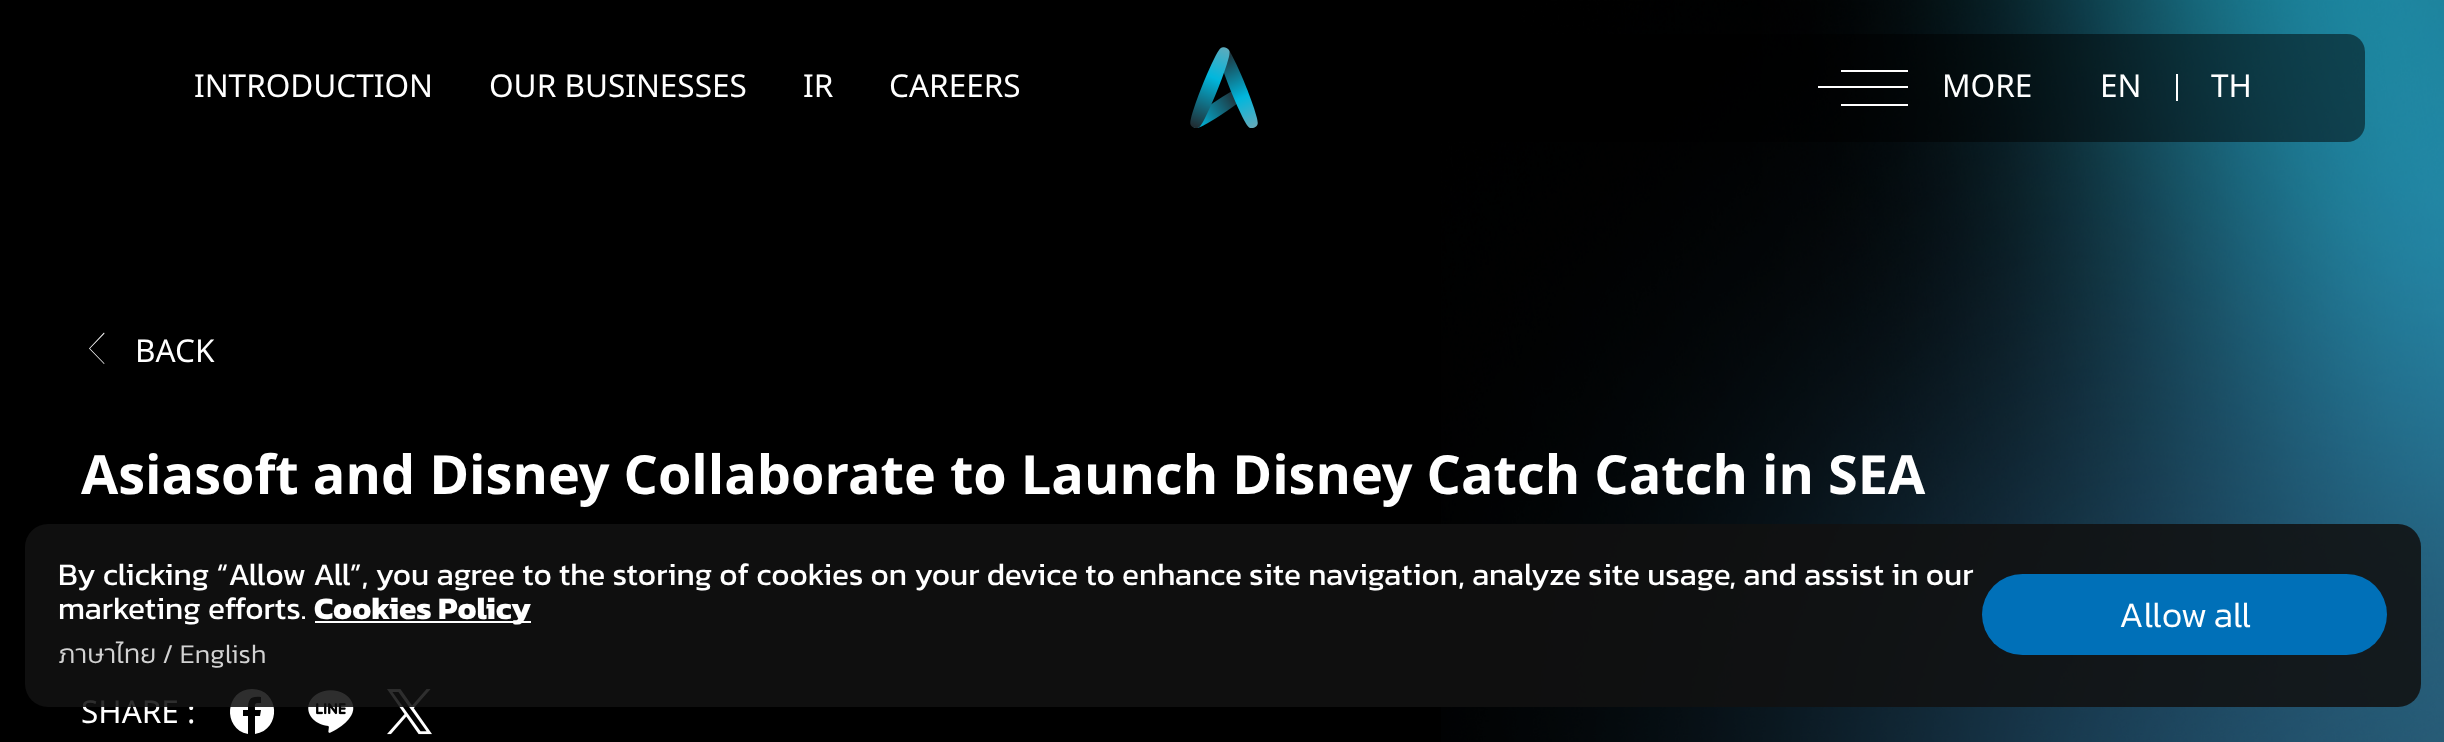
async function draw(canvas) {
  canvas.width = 2444
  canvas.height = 742
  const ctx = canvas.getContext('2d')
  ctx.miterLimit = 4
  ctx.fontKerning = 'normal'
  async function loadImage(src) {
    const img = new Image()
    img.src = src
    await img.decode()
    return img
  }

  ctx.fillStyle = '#000'
  ctx.fillRect(0, 0, 2444, 742)
  ctx.drawImage(await loadImage('image3.png'), 1441, 0, 1003, 742)
  ctx.fillStyle = '#00000080'
  ctx.beginPath()
  ctx.roundRect(81, 34, 2284, 108, 18)
  ctx.fill()
  ctx.font = '31.5px Noto Sans Thai'
  ctx.fillStyle = '#fff'
  ctx.fillText('INTRODUCTION', 194, 97)
  ctx.fillText('OUR BUSINESSES', 489, 97)
  ctx.fillText('IR', 803, 97)
  ctx.fillText('CAREERS', 889, 97)
  ctx.drawImage(await loadImage('image0.png'), 1190, 47, 68, 81)
  ctx.fillRect(1841, 70, 67, 2)
  ctx.fillRect(1818, 86, 90, 2)
  ctx.fillRect(1841, 104, 67, 2)
  ctx.fillText('MORE', 1942, 97)
  ctx.fillText('EN', 2100, 97)
  ctx.fillRect(2176, 74, 2, 27)
  ctx.fillText('TH', 2211, 97)
  ctx.fillText('BACK', 135, 362)
  ctx.beginPath()
  ctx.moveTo(104, 364)
  ctx.lineTo(104.5, 363.5)
  ctx.lineTo(90, 348.5)
  ctx.lineTo(104.5, 333.5)
  ctx.lineTo(104, 332.5)
  ctx.lineTo(89, 348.5)
  ctx.closePath()
  ctx.fill()
  ctx.font = 'bold 54px Noto Sans Thai'
  ctx.fillText('Asiasoft and Disney Collaborate to Launch Disney Catch Catch in SEA', 81, 494)
  ctx.font = '31.5px Noto Sans Thai'
  ctx.fillText('SHARE :', 81, 723)
  ctx.beginPath()
  ctx.moveTo(252, 689)
  ctx.bezierCurveTo(225, 689, 222, 729, 248, 734)
  ctx.lineTo(248, 716)
  ctx.lineTo(243, 716)
  ctx.lineTo(243, 710)
  ctx.lineTo(248, 710)
  ctx.bezierCurveTo(248, 699, 250, 696, 261, 697)
  ctx.lineTo(261, 703)
  ctx.bezierCurveTo(254, 703, 255, 703, 255, 710)
  ctx.lineTo(261, 710)
  ctx.lineTo(260, 716)
  ctx.lineTo(255, 716)
  ctx.lineTo(255, 734)
  ctx.bezierCurveTo(282, 730, 280, 689, 252, 689)
  ctx.closePath()
  ctx.fill()
  ctx.drawImage(await loadImage('image1.png'), 308, 690, 46, 43)
  ctx.drawImage(await loadImage('image2.png'), 387, 689, 45, 46)
  ctx.fillStyle = '#111111e0'
  ctx.beginPath()
  ctx.roundRect(25, 524, 2396, 183, 23)
  ctx.fill()
  ctx.font = '31.5px Kanit'
  ctx.fillStyle = '#fff'
  ctx.fillText('By clicking “Allow All”, you agree to the storing of cookies on your device to enhance site navigation, analyze site usage, and assist in our', 58, 585)
  ctx.fillText('marketing efforts.', 58, 619)
  ctx.fillRect(315, 621, 216, 2)
  ctx.font = 'bold 31.5px Kanit'
  ctx.fillText('Cookies Policy', 314, 619)
  ctx.font = '300 27px Kanit'
  ctx.fillStyle = '#d2d2d2'
  ctx.fillText('ภาษาไทย / English', 58, 663)
  ctx.fillStyle = '#0070b8'
  ctx.beginPath()
  ctx.roundRect(1982, 574, 405, 81, 40.5)
  ctx.fill()
  ctx.wordSpacing = '-2px'
  ctx.font = '300 36px Kanit'
  ctx.fillStyle = '#fff'
  ctx.fillText('Allow all', 2119, 627)
}

draw(document.querySelector('canvas'))
